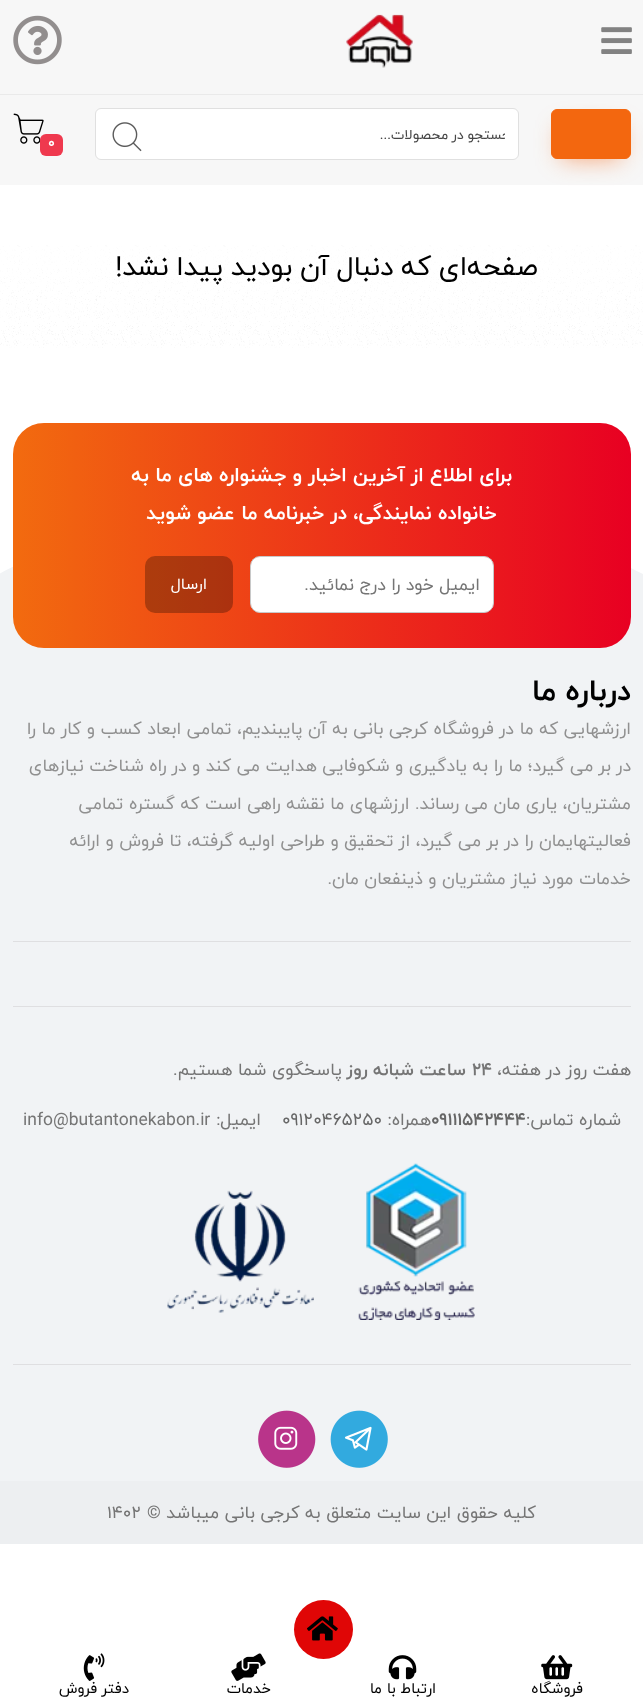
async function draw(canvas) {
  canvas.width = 643
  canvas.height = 1703
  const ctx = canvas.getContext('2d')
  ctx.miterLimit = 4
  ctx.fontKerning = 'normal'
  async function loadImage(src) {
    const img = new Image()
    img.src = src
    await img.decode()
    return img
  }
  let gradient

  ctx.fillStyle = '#fff'
  ctx.fillRect(0, 0, 643, 1703)
  ctx.fillStyle = '#f7f7f7'
  ctx.fillRect(0, 0, 643, 94)
  ctx.fillStyle = '#eaeaea'
  ctx.fillRect(0, 94, 643, 1)
  ctx.drawImage(await loadImage('image0.png'), 601, 27, 31, 27)
  ctx.drawImage(await loadImage('image1.png'), 346, 14, 67, 54)
  ctx.drawImage(await loadImage('image2.png'), 13, 15, 49, 50)
  ctx.fillStyle = '#f7f7f7'
  ctx.fillRect(0, 95, 643, 90)
  ctx.fillStyle = '#f3621199'
  ctx.filter = 'blur(12px)'
  ctx.beginPath()
  ctx.rect(561, 128, 60, 30)
  ctx.fill()
  ctx.filter = 'none'
  ctx.fillStyle = '#f3670f'
  ctx.beginPath()
  ctx.roundRect(551.5, 109.5, 79, 49, 5.5)
  ctx.fill()
  ctx.strokeStyle = '#f3670f'
  ctx.stroke()
  ctx.fillStyle = '#fff'
  ctx.beginPath()
  ctx.roundRect(95.5, 108.5, 423, 51, 5.5)
  ctx.fill()
  ctx.strokeStyle = '#e0e0e0'
  ctx.stroke()
  ctx.save()
  ctx.beginPath()
  ctx.rect(121, 123, 384, 23)
  ctx.clip()
  ctx.letterSpacing = '0.4px'
  ctx.wordSpacing = '-1px'
  ctx.direction = 'rtl'
  ctx.font = '14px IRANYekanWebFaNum'
  ctx.fillStyle = '#474747'
  ctx.fillText('جستجو در محصولات...', 511, 139)
  ctx.restore()
  ctx.drawImage(await loadImage('image3.png'), 112, 122, 30, 30)
  ctx.drawImage(await loadImage('image4.png'), 13, 113, 31, 31)
  ctx.fillStyle = '#ef394e'
  ctx.beginPath()
  ctx.roundRect(40, 134, 23, 22, 6)
  ctx.fill()
  ctx.font = 'bold 14px IRANYekanWebFaNum'
  ctx.fillStyle = '#fff'
  ctx.fillText('0', 48, 147)
  ctx.drawImage(await loadImage('image5.png'), 0, 245, 643, 103)
  ctx.letterSpacing = '0.3px'
  ctx.wordSpacing = '-1.5px'
  ctx.direction = 'rtl'
  ctx.font = '27.5px IRANYekanWebFaNum'
  ctx.fillStyle = '#000'
  ctx.fillText('صفحه‌ای که دنبال آن بودید پیدا نشد!', 538, 275)
  ctx.fillStyle = '#f1f3f5'
  ctx.beginPath()
  ctx.moveTo(-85, 655)
  ctx.lineTo(-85, 661)
  ctx.lineTo(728, 661)
  ctx.lineTo(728, 655)
  ctx.bezierCurveTo(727, 626, 625, 510, 321, 509)
  ctx.bezierCurveTo(18, 508, -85, 627, -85, 655)
  ctx.closePath()
  ctx.fill()
  gradient = ctx.createLinearGradient(631, 535, 12, 535)
  gradient.addColorStop(0, '#e80022')
  gradient.addColorStop(1, '#f26b0f')
  ctx.fillStyle = gradient
  ctx.beginPath()
  ctx.roundRect(13, 423, 618, 225, 31)
  ctx.fill()
  ctx.letterSpacing = '0px'
  ctx.wordSpacing = '0px'
  ctx.font = 'bold 20px IRANYekanWebFaNum'
  ctx.fillStyle = '#fff'
  ctx.fillText('برای اطلاع از آخرین اخبار و جشنواره های ما به', 512, 481)
  ctx.fillText('خانواده نمایندگی، در خبرنامه ما عضو شوید', 497, 519)
  ctx.beginPath()
  ctx.roundRect(250.5, 556.5, 243, 56, 9.5)
  ctx.fill()
  ctx.strokeStyle = '#c8c8c8'
  ctx.stroke()
  ctx.font = '17.5px IRANYekanWebFaNum'
  ctx.fillStyle = '#757575'
  ctx.fillText('ایمیل خود را درج نمائید.', 480, 590)
  ctx.fillStyle = '#00000047'
  ctx.beginPath()
  ctx.roundRect(145, 556, 88, 57, 10)
  ctx.fill()
  ctx.font = '16px IRANYekanWebFaNum'
  ctx.fillStyle = '#fff'
  ctx.fillText('ارسال', 207, 589)
  ctx.fillStyle = '#f1f3f5'
  ctx.fillRect(0, 661, 643, 820)
  ctx.font = 'bold 30px IRANYekanWebFaNum'
  ctx.fillStyle = '#000'
  ctx.fillText('درباره ما', 631, 700)
  ctx.font = '17.5px IRANYekanWebFaNum'
  ctx.fillStyle = '#909090'
  ctx.fillText('ارزشهایی که ما در فروشگاه کرجی بانی به آن پایبندیم، تمامی ابعاد کسب و کار ما را', 631, 734)
  ctx.fillText('در بر می گیرد؛ ما را به یادگیری و شکوفایی هدایت می کند و در راه شناخت نیازهای', 631, 771)
  ctx.fillText('مشتریان، یاری مان می رساند. ارزشهای ما نقشه راهی است که گستره تمامی', 631, 809)
  ctx.fillText('فعالیتهایمان را در بر می گیرد، از تحقیق و طراحی اولیه گرفته، تا فروش و ارائه', 631, 846)
  ctx.fillText('خدمات مورد نیاز مشتریان و ذینفعان مان.', 631, 884)
  ctx.fillStyle = '#dfdfe1'
  ctx.fillRect(13, 941, 618, 1)
  ctx.fillRect(13, 1006, 618, 1)
  ctx.fillStyle = '#757575'
  ctx.fillText('هفت روز در هفته،', 631, 1075)
  ctx.direction = 'ltr'
  ctx.font = 'bold 17.5px IRANYekanWebFaNum'
  ctx.fillText('24', 472, 1075)
  ctx.direction = 'rtl'
  ctx.fillText('ساعت شبانه روز', 466, 1075)
  ctx.font = '17.5px IRANYekanWebFaNum'
  ctx.fillText('پاسخگوی شما هستیم.', 342, 1075)
  ctx.fillText('شماره تماس:', 621, 1125)
  ctx.direction = 'ltr'
  ctx.font = 'bold 17.5px IRANYekanWebFaNum'
  ctx.fillStyle = '#666'
  ctx.fillText('09111542444', 431, 1125)
  ctx.direction = 'rtl'
  ctx.font = '17.5px IRANYekanWebFaNum'
  ctx.fillStyle = '#757575'
  ctx.fillText('همراه:', 431, 1125)
  ctx.direction = 'ltr'
  ctx.fillStyle = '#666'
  ctx.fillText('09120465250', 282, 1125)
  ctx.direction = 'rtl'
  ctx.fillStyle = '#757575'
  ctx.fillText('ایمیل:', 261, 1125)
  ctx.direction = 'ltr'
  ctx.fillText('info@butantonekabon.ir', 23, 1125)
  ctx.drawImage(await loadImage('image6.png'), 358, 1163, 117, 157)
  ctx.drawImage(await loadImage('image7.png'), 167, 1190, 147, 123)
  ctx.fillStyle = '#dfdfe1'
  ctx.fillRect(13, 1364, 618, 1)
  ctx.drawImage(await loadImage('image8.png'), 330, 1410, 58, 58)
  ctx.drawImage(await loadImage('image9.png'), 258, 1410, 58, 58)
  ctx.fillStyle = '#edeff1'
  ctx.fillRect(0, 1481, 643, 63)
  ctx.direction = 'rtl'
  ctx.fillStyle = '#757575'
  ctx.fillText('کلیه حقوق این سایت متعلق به کرجی بانی میباشد ©', 536, 1518)
  ctx.direction = 'ltr'
  ctx.fillText('1402', 107, 1518)
  ctx.fillStyle = '#e00606'
  ctx.beginPath()
  ctx.arc(323.5, 1629.5, 29.5, 0, 2 * Math.PI)
  ctx.fill()
  ctx.drawImage(await loadImage('image10.png'), 307, 1616, 31, 25)
  ctx.drawImage(await loadImage('image11.png'), 541, 1655, 32, 25)
  ctx.direction = 'rtl'
  ctx.font = '15px IRANYekanWebFaNum'
  ctx.fillStyle = '#000'
  ctx.fillText('فروشگاه', 583, 1693)
  ctx.drawImage(await loadImage('image12.png'), 388, 1655, 29, 25)
  ctx.fillText('ارتباط با ما', 436, 1693)
  ctx.drawImage(await loadImage('image13.png'), 231, 1653, 35, 28)
  ctx.fillText('خدمات', 271, 1693)
  ctx.drawImage(await loadImage('image14.png'), 83, 1653, 22, 28)
  ctx.fillText('دفتر فروش', 129, 1693)
}

draw(document.querySelector('canvas'))
